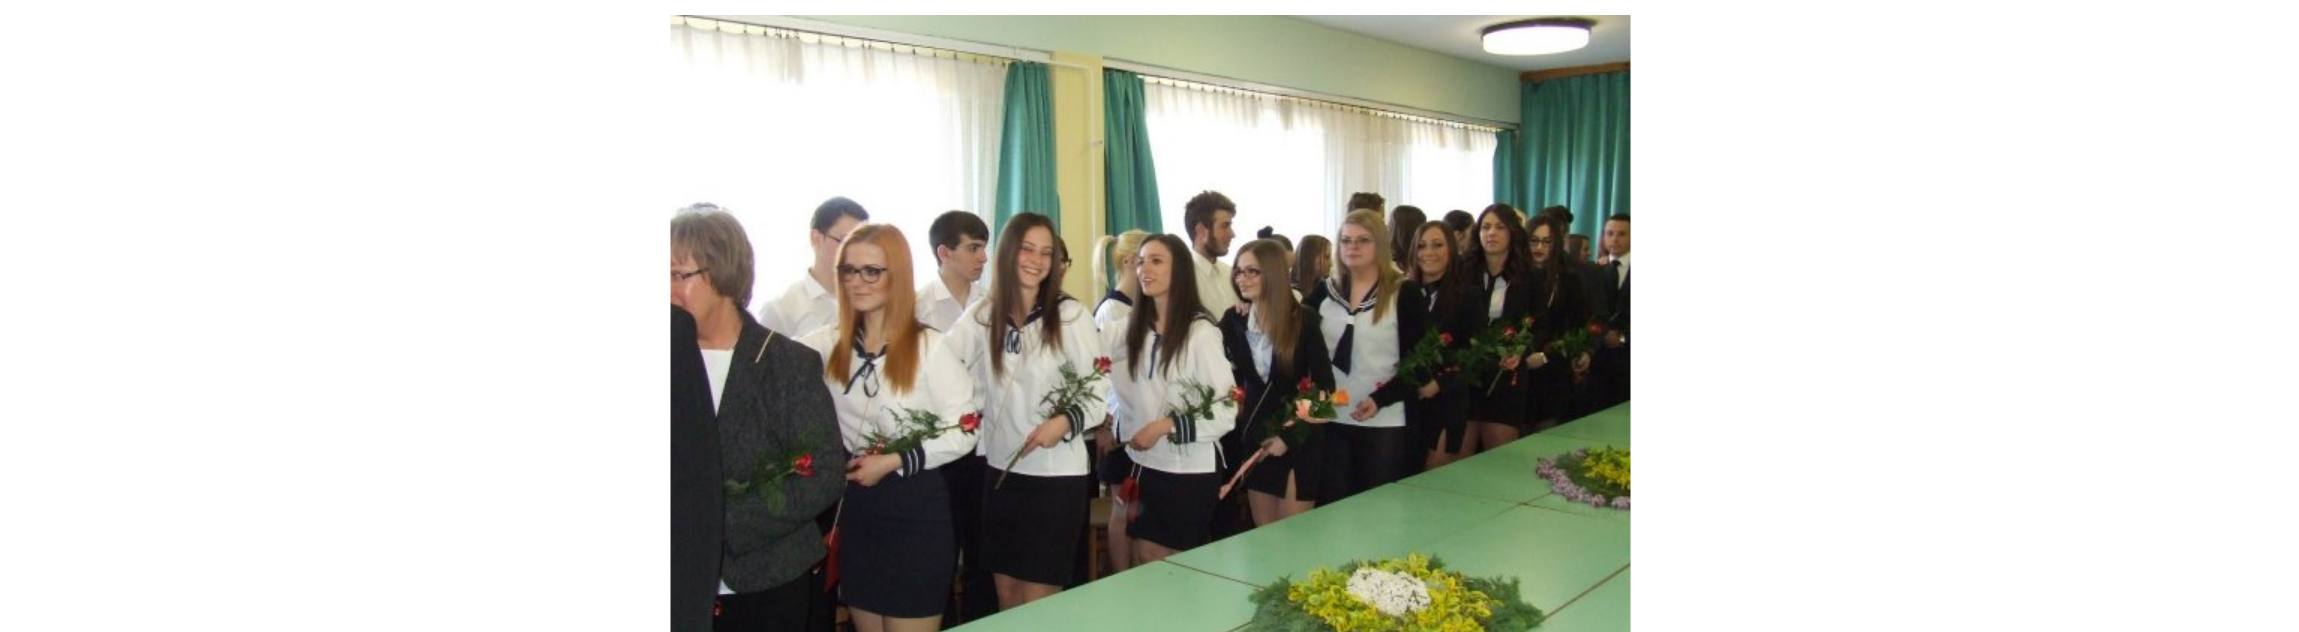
async function draw(canvas) {
  canvas.width = 2299
  canvas.height = 632
  const ctx = canvas.getContext('2d')
  ctx.miterLimit = 4
  ctx.fontKerning = 'normal'
  async function loadImage(src) {
    const img = new Image()
    img.src = src
    await img.decode()
    return img
  }

  ctx.fillStyle = '#fff'
  ctx.fillRect(0, 0, 2299, 632)
  ctx.drawImage(await loadImage('image0.png'), 670, 15, 961, 617)
}

draw(document.querySelector('canvas'))
